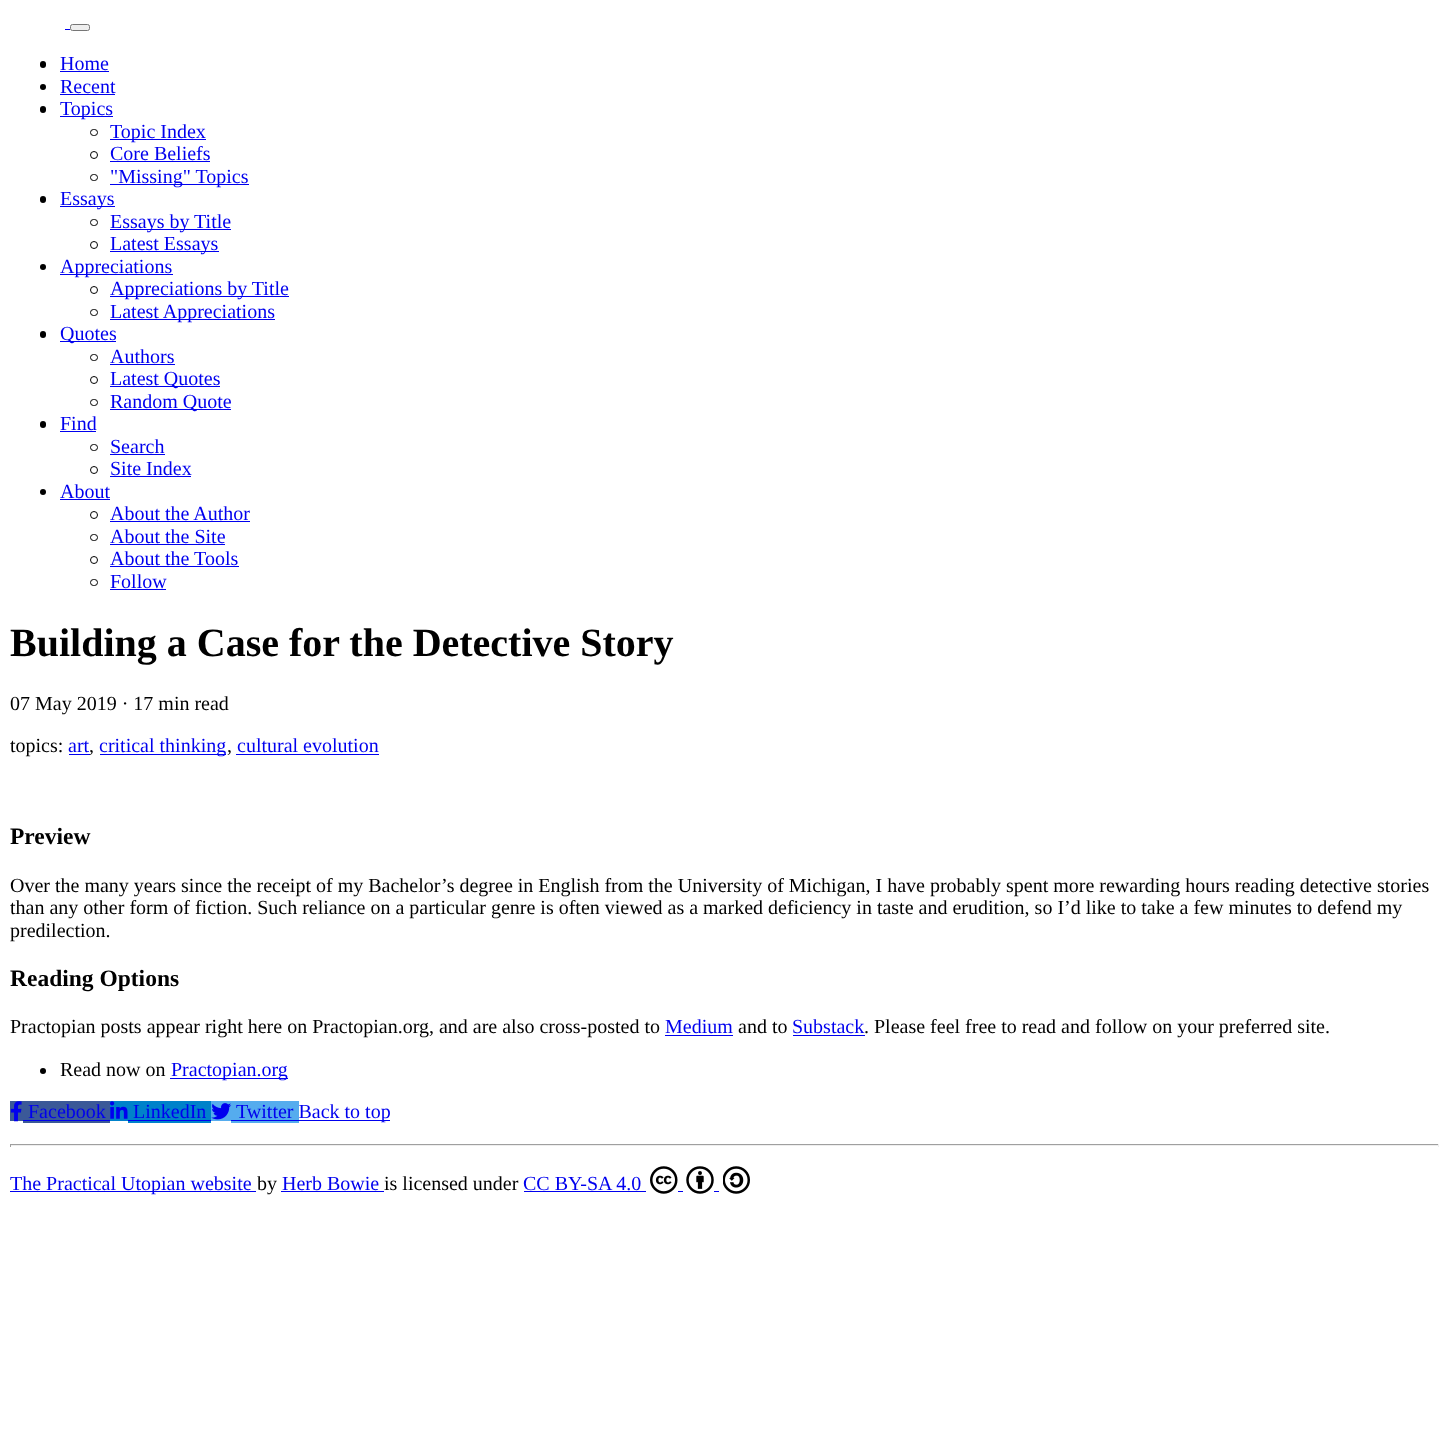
async function draw(canvas) {
  canvas.width = 1448
  canvas.height = 1453
  const ctx = canvas.getContext('2d')
  ctx.miterLimit = 4
  ctx.fontKerning = 'normal'
  async function loadImage(src) {
    const img = new Image()
    img.src = src
    await img.decode()
    return img
  }

  ctx.fillStyle = '#fff'
  ctx.fillRect(0, 0, 1448, 1453)
  ctx.fillStyle = '#00e'
  ctx.fillRect(65, 29, 5, 1)
  ctx.fillStyle = '#efefef'
  ctx.beginPath()
  ctx.roundRect(70.5, 24.5, 19, 6, 2)
  ctx.fill()
  ctx.strokeStyle = '#767676'
  ctx.stroke()
  ctx.fillStyle = '#000'
  ctx.beginPath()
  ctx.roundRect(40, 61, 6, 7, 3)
  ctx.fill()
  ctx.font = '20px Liberation Serif'
  ctx.fillStyle = '#00e'
  ctx.fillText('Home', 60, 70)
  ctx.fillRect(60, 71, 49, 1)
  ctx.fillStyle = '#000'
  ctx.beginPath()
  ctx.arc(43, 87, 3, 0, 2 * Math.PI)
  ctx.fill()
  ctx.fillStyle = '#00e'
  ctx.fillText('Recent', 60, 93)
  ctx.fillRect(60, 94, 55, 1)
  ctx.fillStyle = '#000'
  ctx.beginPath()
  ctx.roundRect(40, 106, 6, 7, 3)
  ctx.fill()
  ctx.fillStyle = '#00e'
  ctx.fillRect(60, 116, 53, 1)
  ctx.fillText('Topics', 60, 115)
  ctx.beginPath()
  ctx.roundRect(90.5, 129.5, 7, 6, 3)
  ctx.strokeStyle = '#000'
  ctx.stroke()
  ctx.fillRect(110, 139, 96, 1)
  ctx.fillText('Topic Index', 110, 138)
  ctx.beginPath()
  ctx.arc(94, 155, 3.5, 0, 2 * Math.PI)
  ctx.stroke()
  ctx.fillText('Core Beliefs', 110, 160)
  ctx.fillRect(110, 161, 100, 1)
  ctx.beginPath()
  ctx.roundRect(90.5, 174.5, 7, 6, 3)
  ctx.stroke()
  ctx.fillRect(110, 184, 139, 1)
  ctx.fillText('"Missing" Topics', 110, 183)
  ctx.fillStyle = '#000'
  ctx.beginPath()
  ctx.roundRect(40, 196, 6, 7, 3)
  ctx.fill()
  ctx.fillStyle = '#00e'
  ctx.fillRect(60, 206, 55, 1)
  ctx.fillText('Essays', 60, 205)
  ctx.beginPath()
  ctx.roundRect(90.5, 219.5, 7, 6, 3)
  ctx.stroke()
  ctx.fillRect(110, 229, 121, 1)
  ctx.fillText('Essays by Title', 110, 228)
  ctx.beginPath()
  ctx.arc(94, 245, 3.5, 0, 2 * Math.PI)
  ctx.stroke()
  ctx.fillRect(110, 251, 109, 1)
  ctx.fillText('Latest Essays', 110, 250)
  ctx.fillStyle = '#000'
  ctx.beginPath()
  ctx.arc(43, 267, 3, 0, 2 * Math.PI)
  ctx.fill()
  ctx.fillStyle = '#00e'
  ctx.fillRect(60, 274, 113, 1)
  ctx.fillText('Appreciations', 60, 273)
  ctx.beginPath()
  ctx.arc(94, 290, 3.5, 0, 2 * Math.PI)
  ctx.stroke()
  ctx.fillRect(110, 296, 179, 1)
  ctx.fillText('Appreciations by Title', 110, 295)
  ctx.beginPath()
  ctx.roundRect(90.5, 309.5, 7, 6, 3)
  ctx.stroke()
  ctx.fillRect(110, 319, 165, 1)
  ctx.fillText('Latest Appreciations', 110, 318)
  ctx.fillStyle = '#000'
  ctx.beginPath()
  ctx.roundRect(40, 331, 6, 7, 3)
  ctx.fill()
  ctx.fillStyle = '#00e'
  ctx.fillRect(60, 341, 56, 1)
  ctx.fillText('Quotes', 60, 340)
  ctx.beginPath()
  ctx.roundRect(90.5, 354.5, 7, 6, 3)
  ctx.stroke()
  ctx.fillText('Authors', 110, 363)
  ctx.fillRect(110, 364, 65, 1)
  ctx.beginPath()
  ctx.arc(94, 380, 3.5, 0, 2 * Math.PI)
  ctx.stroke()
  ctx.fillRect(110, 386, 110, 1)
  ctx.fillText('Latest Quotes', 110, 385)
  ctx.beginPath()
  ctx.roundRect(90.5, 399.5, 7, 6, 3)
  ctx.stroke()
  ctx.fillRect(110, 409, 121, 1)
  ctx.fillText('Random Quote', 110, 408)
  ctx.fillStyle = '#000'
  ctx.beginPath()
  ctx.roundRect(40, 421, 6, 7, 3)
  ctx.fill()
  ctx.fillStyle = '#00e'
  ctx.fillText('Find', 60, 430)
  ctx.fillRect(60, 431, 36, 1)
  ctx.beginPath()
  ctx.roundRect(90.5, 444.5, 7, 6, 3)
  ctx.stroke()
  ctx.fillText('Search', 110, 453)
  ctx.fillRect(110, 454, 55, 1)
  ctx.beginPath()
  ctx.arc(94, 470, 3.5, 0, 2 * Math.PI)
  ctx.stroke()
  ctx.fillText('Site Index', 110, 475)
  ctx.fillRect(110, 476, 81, 1)
  ctx.fillStyle = '#000'
  ctx.beginPath()
  ctx.arc(43, 492, 3, 0, 2 * Math.PI)
  ctx.fill()
  ctx.fillStyle = '#00e'
  ctx.fillText('About', 60, 498)
  ctx.fillRect(60, 499, 50, 1)
  ctx.beginPath()
  ctx.arc(94, 515, 3.5, 0, 2 * Math.PI)
  ctx.stroke()
  ctx.fillText('About the Author', 110, 520)
  ctx.fillRect(110, 521, 140, 1)
  ctx.beginPath()
  ctx.roundRect(90.5, 534.5, 7, 6, 3)
  ctx.stroke()
  ctx.fillText('About the Site', 110, 543)
  ctx.fillRect(110, 544, 115, 1)
  ctx.beginPath()
  ctx.arc(94, 560, 3.5, 0, 2 * Math.PI)
  ctx.stroke()
  ctx.fillText('About the Tools', 110, 565)
  ctx.fillRect(110, 566, 129, 1)
  ctx.beginPath()
  ctx.roundRect(90.5, 579.5, 7, 6, 3)
  ctx.stroke()
  ctx.fillText('Follow', 110, 588)
  ctx.fillRect(110, 589, 56, 1)
  ctx.font = 'bold 40px Liberation Serif'
  ctx.fillStyle = '#000'
  ctx.fillText('Building a Case for the Detective Story', 10, 656)
  ctx.font = '20px Liberation Serif'
  ctx.fillText('07 May 2019 · 17 min read', 10, 710)
  ctx.fillText('topics:', 10, 752)
  ctx.fillStyle = '#00e'
  ctx.fillText('art', 68, 752)
  ctx.fillRect(69, 754, 21, 1)
  ctx.fillStyle = '#000'
  ctx.fillText(',', 89, 752)
  ctx.fillStyle = '#00e'
  ctx.fillRect(100, 754, 126, 1)
  ctx.fillText('critical thinking', 99, 752)
  ctx.fillStyle = '#000'
  ctx.fillText(',', 227, 752)
  ctx.fillStyle = '#00e'
  ctx.fillText('cultural evolution', 237, 752)
  ctx.fillRect(236, 754, 143, 1)
  ctx.font = 'bold 23.5px Liberation Serif'
  ctx.fillStyle = '#000'
  ctx.fillText('Preview', 10, 844)
  ctx.font = '20px Liberation Serif'
  ctx.fillText('Over the many years since the receipt of my Bachelor’s degree in English from the University of Michigan, I have probably spent more rewarding hours reading detective stories', 10, 892)
  ctx.fillText('than any other form of fiction. Such reliance on a particular genre is often viewed as a marked deficiency in taste and erudition, so I’d like to take a few minutes to defend my', 10, 914)
  ctx.fillText('predilection.', 10, 937)
  ctx.font = 'bold 23.5px Liberation Serif'
  ctx.fillText('Reading Options', 10, 986)
  ctx.font = '20px Liberation Serif'
  ctx.fillText('Practopian posts appear right here on Practopian.org, and are also cross-posted to', 10, 1033)
  ctx.fillStyle = '#00e'
  ctx.fillText('Medium', 665, 1033)
  ctx.fillRect(665, 1035, 68, 1)
  ctx.fillStyle = '#000'
  ctx.fillText('and to', 738, 1033)
  ctx.fillStyle = '#00e'
  ctx.fillText('Substack', 792, 1033)
  ctx.fillRect(793, 1035, 72, 1)
  ctx.fillStyle = '#000'
  ctx.fillText('. Please feel free to read and follow on your preferred site.', 864, 1033)
  ctx.beginPath()
  ctx.arc(43, 1071, 3, 0, 2 * Math.PI)
  ctx.fill()
  ctx.fillText('Read now on', 60, 1076)
  ctx.fillStyle = '#00e'
  ctx.fillRect(170, 1078, 118, 1)
  ctx.fillText('Practopian.org', 171, 1076)
  ctx.fillStyle = '#3b5998'
  ctx.fillRect(10, 1101, 13, 20)
  ctx.fillRect(23, 1101, 87, 22)
  ctx.drawImage(await loadImage('image0.png'), 10, 1101, 12, 21)
  ctx.fillStyle = '#00e'
  ctx.fillText('Facebook', 28, 1118)
  ctx.fillRect(23, 1120, 87, 1)
  ctx.fillStyle = '#0082ca'
  ctx.fillRect(110, 1101, 18, 20)
  ctx.fillRect(128, 1101, 83, 22)
  ctx.drawImage(await loadImage('image1.png'), 110, 1101, 18, 18)
  ctx.fillStyle = '#00e'
  ctx.fillText('LinkedIn', 133, 1118)
  ctx.fillRect(128, 1120, 83, 1)
  ctx.fillStyle = '#55acee'
  ctx.fillRect(211, 1101, 20, 20)
  ctx.fillRect(231, 1101, 68, 22)
  ctx.drawImage(await loadImage('image2.png'), 211, 1103, 21, 17)
  ctx.fillStyle = '#00e'
  ctx.fillRect(231, 1120, 159, 1)
  ctx.fillText('Twitter Back to top', 236, 1118)
  ctx.fillStyle = '#9f9f9f'
  ctx.fillRect(10, 1144, 1429, 1)
  ctx.fillStyle = '#eee'
  ctx.fillRect(1438, 1144, 1, 3)
  ctx.fillRect(10, 1145, 1429, 1)
  ctx.fillStyle = '#9f9f9f'
  ctx.fillRect(10, 1144, 1, 3)
  ctx.fillStyle = '#00e'
  ctx.fillRect(10, 1191, 246, 1)
  ctx.fillText('The Practical Utopian website', 10, 1190)
  ctx.fillStyle = '#000'
  ctx.fillText('by', 257, 1190)
  ctx.fillStyle = '#00e'
  ctx.fillText('Herb Bowie', 282, 1190)
  ctx.fillRect(281, 1191, 103, 1)
  ctx.fillStyle = '#000'
  ctx.fillText('is licensed under', 384, 1190)
  ctx.fillStyle = '#00e'
  ctx.fillText('CC BY-SA 4.0', 523, 1190)
  ctx.fillRect(524, 1191, 122, 1)
  ctx.drawImage(await loadImage('image3.png'), 650, 1166, 28, 28)
  ctx.drawImage(await loadImage('image4.png'), 686, 1166, 28, 28)
  ctx.drawImage(await loadImage('image5.png'), 723, 1166, 27, 28)
  ctx.fillRect(678, 1191, 5, 1)
  ctx.fillRect(714, 1191, 5, 1)
}

draw(document.querySelector('canvas'))
